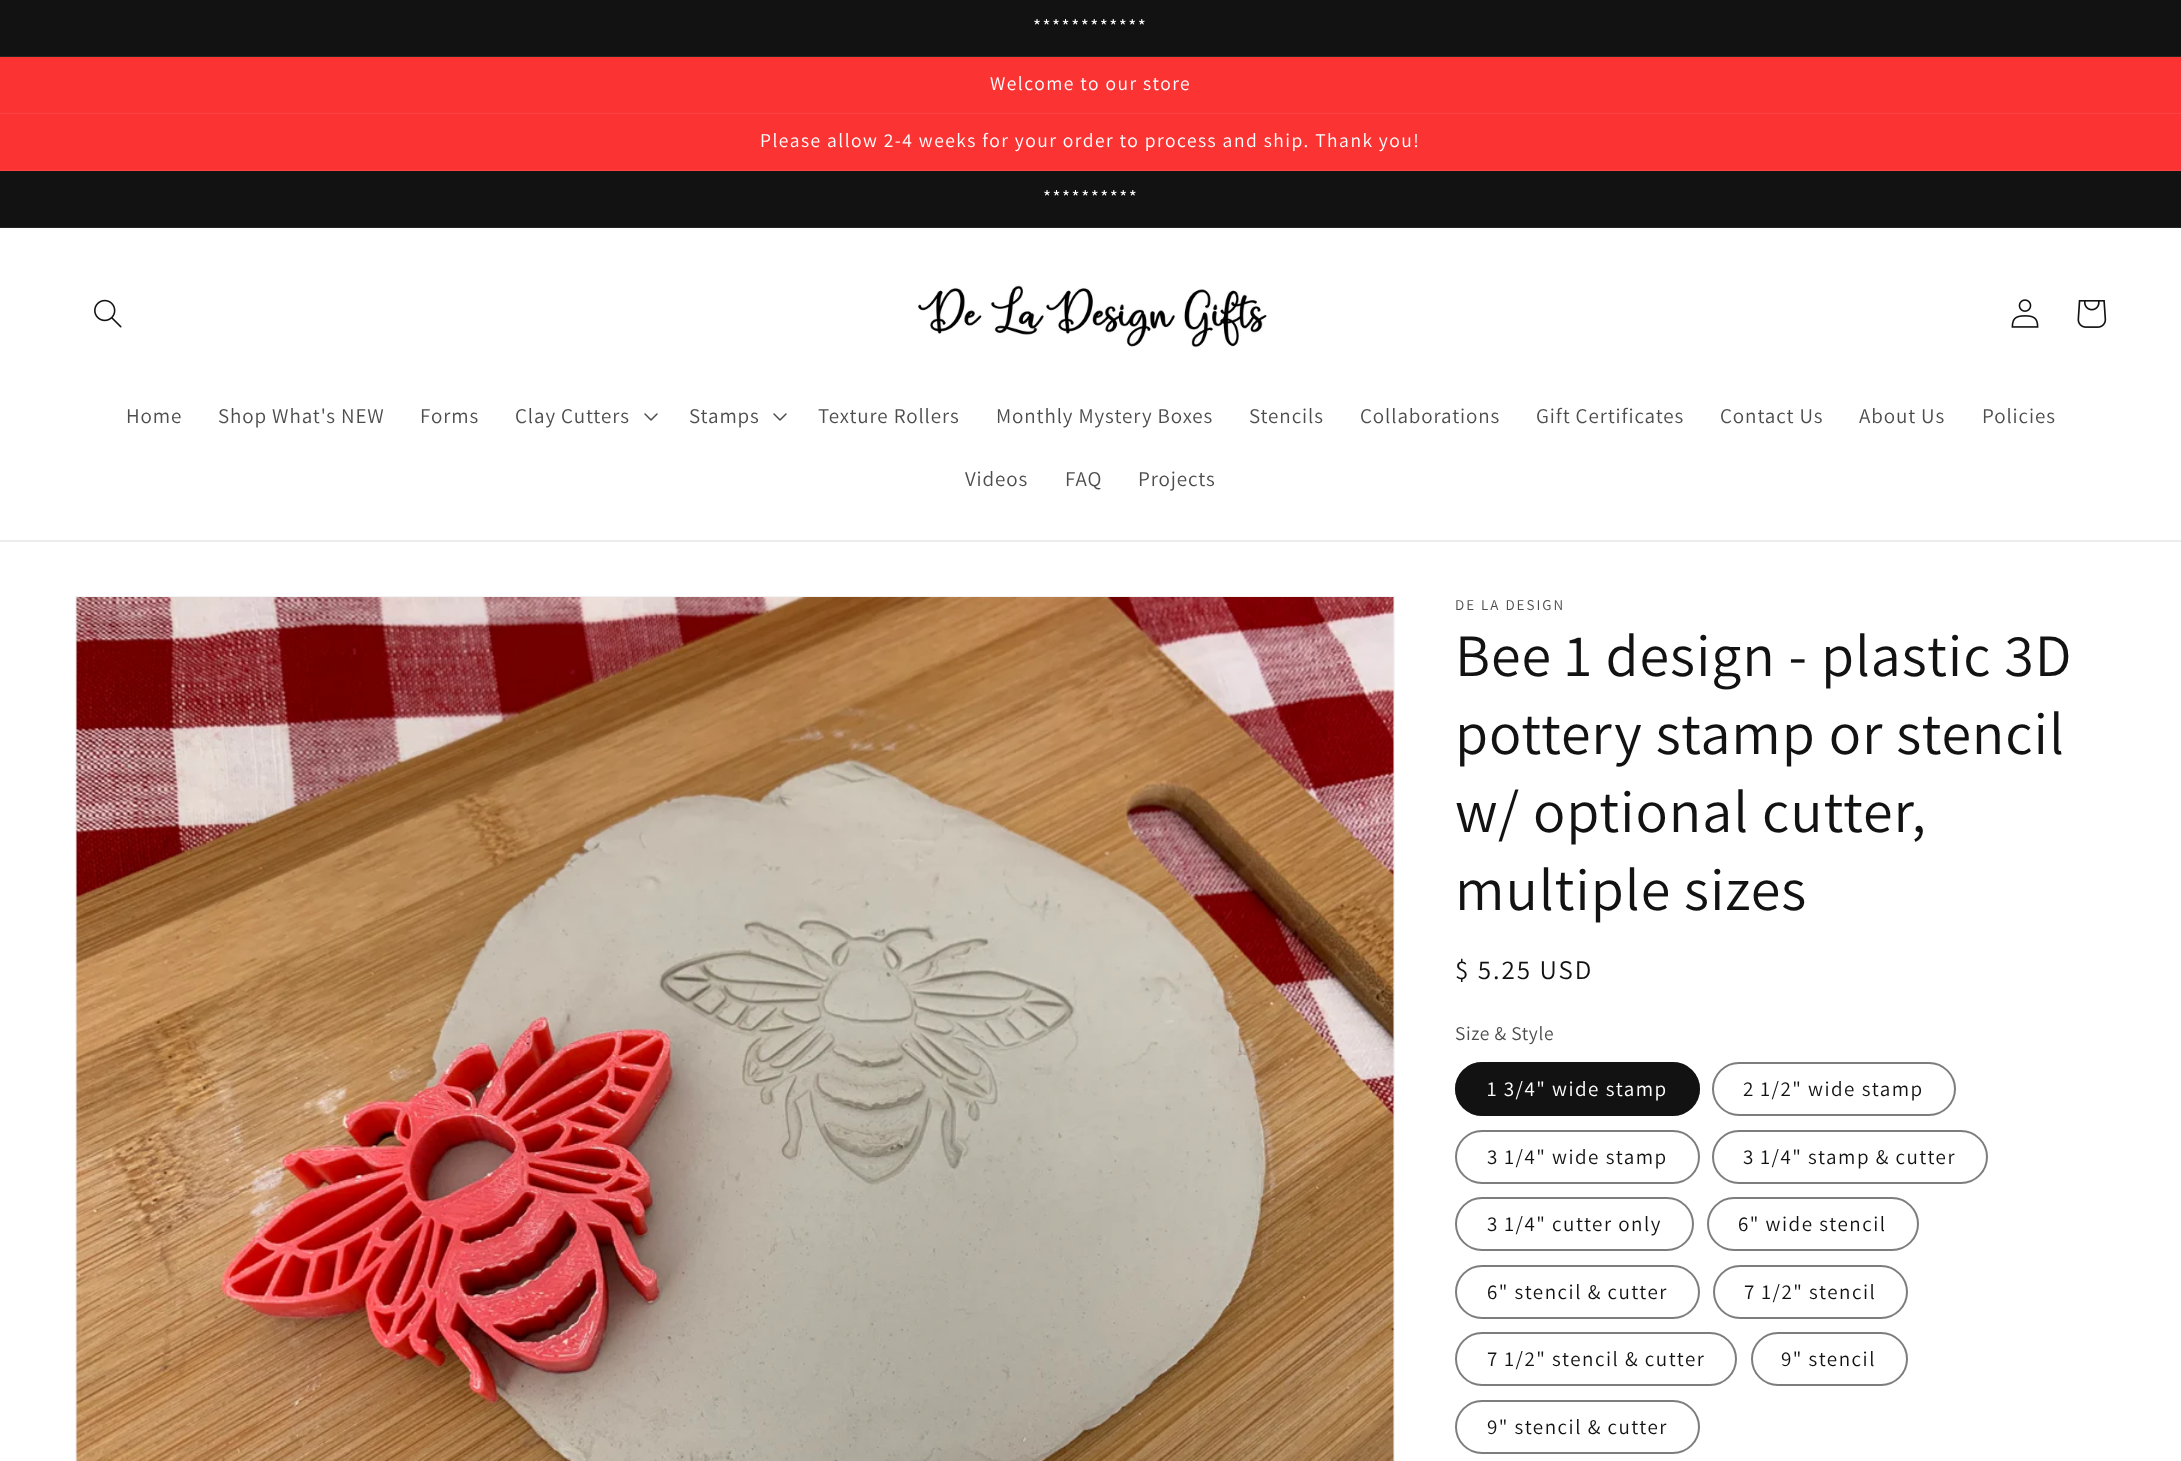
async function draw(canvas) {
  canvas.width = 2181
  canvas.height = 1461
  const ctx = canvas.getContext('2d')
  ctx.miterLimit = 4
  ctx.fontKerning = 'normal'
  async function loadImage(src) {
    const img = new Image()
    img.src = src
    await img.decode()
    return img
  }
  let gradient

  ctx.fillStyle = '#fff'
  ctx.fillRect(0, 0, 2181, 1461)
  ctx.fillStyle = '#121212'
  ctx.fillRect(0, 0, 2181, 56)
  ctx.fillStyle = '#252525'
  ctx.fillRect(0, 56, 2181, 1)
  ctx.letterSpacing = '1.5px'
  ctx.font = '19.5px Assistant'
  ctx.fillStyle = '#fff'
  ctx.fillText('************', 1033, 33)
  gradient = ctx.createLinearGradient(1090, 0, 1091, 1461)
  gradient.addColorStop(0.9, '#fb3333')
  gradient.addColorStop(1, '#fff')
  ctx.fillStyle = gradient
  ctx.fillRect(0, 57, 2181, 56)
  gradient = ctx.createLinearGradient(1090, 0, 1091, 1461)
  gradient.addColorStop(0.9, '#fb4343')
  gradient.addColorStop(1, '#fff')
  ctx.fillStyle = gradient
  ctx.fillRect(0, 113, 2181, 1)
  ctx.fillStyle = '#fff'
  ctx.fillText('Welcome to our store', 990, 90)
  gradient = ctx.createLinearGradient(1090, 0, 1091, 1461)
  gradient.addColorStop(0.9, '#fb3333')
  gradient.addColorStop(1, '#fff')
  ctx.fillStyle = gradient
  ctx.fillRect(0, 114, 2181, 56)
  gradient = ctx.createLinearGradient(1090, 0, 1091, 1461)
  gradient.addColorStop(0.9, '#fb4343')
  gradient.addColorStop(1, '#fff')
  ctx.fillStyle = gradient
  ctx.fillRect(0, 170, 2181, 1)
  ctx.fillStyle = '#fff'
  ctx.fillText('Please allow 2-4 weeks for your order to process and ship. Thank you!', 760, 147)
  ctx.fillStyle = '#121212'
  ctx.fillRect(0, 171, 2181, 56)
  ctx.fillStyle = '#252525'
  ctx.fillRect(0, 227, 2181, 1)
  ctx.fillStyle = '#fff'
  ctx.fillText('**********', 1043, 204)
  ctx.fillStyle = '#ececec'
  ctx.fillRect(0, 540, 2181, 2)
  ctx.drawImage(await loadImage('image0.png'), 94, 299, 28, 29)
  ctx.drawImage(await loadImage('image1.png'), 918, 284, 349, 64)
  ctx.drawImage(await loadImage('image2.png'), 2011, 299, 28, 29)
  ctx.drawImage(await loadImage('image3.png'), 2077, 300, 30, 28)
  ctx.letterSpacing = '0.9px'
  ctx.font = '21px Assistant'
  ctx.fillStyle = '#4d4d4d'
  ctx.fillText('Home', 126, 423)
  ctx.fillText('Shop What\'s NEW', 218, 423)
  ctx.fillText('Forms', 420, 423)
  ctx.fillText('Clay Cutters', 515, 423)
  ctx.drawImage(await loadImage('image4.png'), 644, 413, 14, 8)
  ctx.fillText('Stamps', 689, 423)
  ctx.drawImage(await loadImage('image4.png'), 773, 413, 14, 8)
  ctx.fillText('Texture Rollers', 818, 423)
  ctx.fillText('Monthly Mystery Boxes', 996, 423)
  ctx.fillText('Stencils', 1249, 423)
  ctx.fillText('Collaborations', 1360, 423)
  ctx.fillText('Gift Certificates', 1536, 423)
  ctx.fillText('Contact Us', 1720, 423)
  ctx.fillText('About Us', 1859, 423)
  ctx.fillText('Policies', 1982, 423)
  ctx.fillText('Videos', 965, 486)
  ctx.fillText('FAQ', 1065, 486)
  ctx.fillText('Projects', 1138, 486)
  ctx.strokeStyle = '#f3f3f3'
  ctx.lineWidth = 2
  ctx.strokeRect(76, 597, 1318, 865)
  ctx.drawImage(await loadImage('image5.png'), 76, 597, 1318, 864)
  ctx.letterSpacing = '2px'
  ctx.font = '15px Assistant'
  ctx.fillText('DE LA DESIGN', 1455, 610)
  ctx.letterSpacing = '0.9px'
  ctx.font = '60px Assistant'
  ctx.fillStyle = '#121212'
  ctx.fillText('Bee 1 design - plastic 3D', 1455, 676)
  ctx.fillText('pottery stamp or stencil', 1455, 754)
  ctx.fillText('w/ optional cutter,', 1455, 832)
  ctx.fillText('multiple sizes', 1455, 910)
  ctx.letterSpacing = '2px'
  ctx.font = '27px Assistant'
  ctx.fillText('$ 5.25 USD', 1455, 979)
  ctx.letterSpacing = '0.6px'
  ctx.font = '19.5px Assistant'
  ctx.fillStyle = '#4d4d4d'
  ctx.fillText('Size & Style', 1455, 1040)
  ctx.fillStyle = '#121212'
  ctx.beginPath()
  ctx.roundRect(1455, 1062, 245, 54, 27)
  ctx.fill()
  ctx.beginPath()
  ctx.roundRect(1456, 1063, 243, 52, 26)
  ctx.strokeStyle = '#1212128c'
  ctx.stroke()
  ctx.letterSpacing = '1.5px'
  ctx.font = '21px Assistant'
  ctx.fillStyle = '#fff'
  ctx.fillText('1 3/4" wide stamp', 1487, 1096)
  ctx.beginPath()
  ctx.roundRect(1713, 1063, 242, 52, 26)
  ctx.strokeStyle = '#7d7d7d'
  ctx.stroke()
  ctx.fillStyle = '#121212'
  ctx.fillText('2 1/2" wide stamp', 1743, 1096)
  ctx.beginPath()
  ctx.roundRect(1456, 1131, 243, 52, 26)
  ctx.stroke()
  ctx.fillText('3 1/4" wide stamp', 1487, 1164)
  ctx.beginPath()
  ctx.roundRect(1713, 1131, 274, 52, 26)
  ctx.stroke()
  ctx.fillText('3 1/4" stamp & cutter', 1743, 1164)
  ctx.beginPath()
  ctx.roundRect(1456, 1198, 237, 52, 26)
  ctx.stroke()
  ctx.fillText('3 1/4" cutter only', 1487, 1231)
  ctx.beginPath()
  ctx.roundRect(1708, 1198, 210, 52, 26)
  ctx.stroke()
  ctx.fillText('6" wide stencil', 1738, 1231)
  ctx.beginPath()
  ctx.roundRect(1456, 1266, 243, 52, 26)
  ctx.stroke()
  ctx.fillText('6" stencil & cutter', 1487, 1299)
  ctx.beginPath()
  ctx.roundRect(1714, 1266, 193, 52, 26)
  ctx.stroke()
  ctx.fillText('7 1/2" stencil', 1744, 1299)
  ctx.beginPath()
  ctx.roundRect(1456, 1333, 280, 52, 26)
  ctx.stroke()
  ctx.fillText('7 1/2" stencil & cutter', 1487, 1366)
  ctx.beginPath()
  ctx.roundRect(1752, 1333, 155, 52, 26)
  ctx.stroke()
  ctx.fillText('9" stencil', 1781, 1366)
  ctx.beginPath()
  ctx.roundRect(1456, 1401, 243, 52, 26)
  ctx.stroke()
  ctx.fillText('9" stencil & cutter', 1487, 1434)
}

draw(document.querySelector('canvas'))
